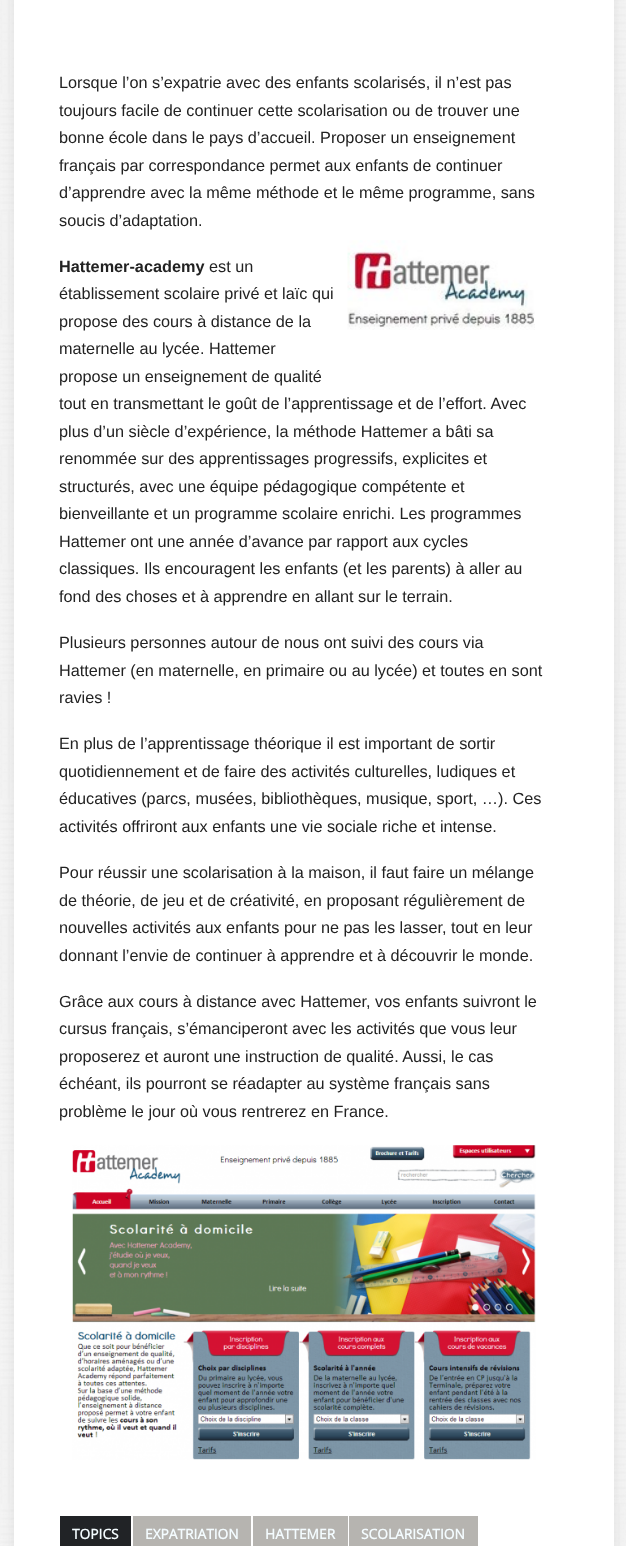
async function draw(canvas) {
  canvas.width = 626
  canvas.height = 1546
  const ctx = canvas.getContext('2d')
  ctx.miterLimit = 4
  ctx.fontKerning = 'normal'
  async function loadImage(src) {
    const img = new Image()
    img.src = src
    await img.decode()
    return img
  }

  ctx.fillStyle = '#fff'
  ctx.fillRect(0, 0, 626, 1546)
  ctx.drawImage(await loadImage('image0.png'), 0, 0, 626, 1546)
  ctx.fillStyle = '#00000014'
  ctx.filter = 'blur(6px)'
  ctx.beginPath()
  ctx.rect(14, -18, 600, 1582)
  ctx.fill()
  ctx.filter = 'none'
  ctx.fillStyle = '#fff'
  ctx.fillRect(14, 0, 600, 1546)
  ctx.font = '16.25px Liberation Sans'
  ctx.fillStyle = '#222'
  ctx.fillText('Lorsque l’on s’expatrie avec des enfants scolarisés, il n’est pas', 59, 88)
  ctx.fillText('toujours facile de continuer cette scolarisation ou de trouver une', 59, 116)
  ctx.fillText('bonne école dans le pays d’accueil. Proposer un enseignement', 59, 143)
  ctx.fillText('français par correspondance permet aux enfants de continuer', 59, 171)
  ctx.fillText('d’apprendre avec la même méthode et le même programme, sans', 59, 198)
  ctx.fillText('soucis d’adaptation.', 59, 226)
  ctx.drawImage(await loadImage('image1.png'), 347, 240, 188, 90)
  ctx.font = 'bold 16.25px Liberation Sans'
  ctx.fillText('Hattemer-academy', 59, 272)
  ctx.font = '16.25px Liberation Sans'
  ctx.fillText('est un', 209, 272)
  ctx.fillText('établissement scolaire privé et laïc qui', 59, 299)
  ctx.fillText('propose des cours à distance de la', 59, 327)
  ctx.fillText('maternelle au lycée. Hattemer', 59, 354)
  ctx.fillText('propose un enseignement de qualité', 59, 382)
  ctx.fillText('tout en transmettant le goût de l’apprentissage et de l’effort. Avec', 59, 409)
  ctx.fillText('plus d’un siècle d’expérience, la méthode Hattemer a bâti sa', 59, 437)
  ctx.fillText('renommée sur des apprentissages progressifs, explicites et', 59, 464)
  ctx.fillText('structurés, avec une équipe pédagogique compétente et', 59, 492)
  ctx.fillText('bienveillante et un programme scolaire enrichi. Les programmes', 59, 519)
  ctx.fillText('Hattemer ont une année d’avance par rapport aux cycles', 59, 547)
  ctx.fillText('classiques. Ils encouragent les enfants (et les parents) à aller au', 59, 574)
  ctx.fillText('fond des choses et à apprendre en allant sur le terrain.', 59, 602)
  ctx.fillText('Plusieurs personnes autour de nous ont suivi des cours via', 59, 648)
  ctx.fillText('Hattemer (en maternelle, en primaire ou au lycée) et toutes en sont', 59, 676)
  ctx.fillText('ravies !', 59, 703)
  ctx.fillText('En plus de l’apprentissage théorique il est important de sortir', 59, 749)
  ctx.fillText('quotidiennement et de faire des activités culturelles, ludiques et', 59, 777)
  ctx.fillText('éducatives (parcs, musées, bibliothèques, musique, sport, …). Ces', 59, 804)
  ctx.fillText('activités offriront aux enfants une vie sociale riche et intense.', 59, 832)
  ctx.fillText('Pour réussir une scolarisation à la maison, il faut faire un mélange', 59, 878)
  ctx.fillText('de théorie, de jeu et de créativité, en proposant régulièrement de', 59, 906)
  ctx.fillText('nouvelles activités aux enfants pour ne pas les lasser, tout en leur', 59, 933)
  ctx.fillText('donnant l’envie de continuer à apprendre et à découvrir le monde.', 59, 961)
  ctx.fillText('Grâce aux cours à distance avec Hattemer, vos enfants suivront le', 59, 1007)
  ctx.fillText('cursus français, s’émanciperont avec les activités que vous leur', 59, 1034)
  ctx.fillText('proposerez et auront une instruction de qualité. Aussi, le cas', 59, 1062)
  ctx.fillText('échéant, ils pourront se réadapter au système français sans', 59, 1089)
  ctx.fillText('problème le jour où vous rentrerez en France.', 59, 1117)
  ctx.drawImage(await loadImage('image2.png'), 72, 1145, 464, 315)
  ctx.fillStyle = '#212326'
  ctx.fillRect(60, 1516, 71, 30)
  ctx.font = 'bold 13.75px Open Sans'
  ctx.fillStyle = '#f4fcff'
  ctx.fillText('TOPICS', 72, 1539)
  ctx.fillStyle = '#b6b4b0'
  ctx.fillRect(133, 1516, 118, 30)
  ctx.fillStyle = '#f4fcff'
  ctx.fillText('EXPATRIATION', 145, 1539)
  ctx.fillStyle = '#b6b4b0'
  ctx.fillRect(253, 1516, 95, 30)
  ctx.fillStyle = '#f4fcff'
  ctx.fillText('HATTEMER', 265, 1539)
  ctx.fillStyle = '#b6b4b0'
  ctx.fillRect(349, 1516, 129, 30)
  ctx.fillStyle = '#f4fcff'
  ctx.fillText('SCOLARISATION', 361, 1539)
}

draw(document.querySelector('canvas'))
